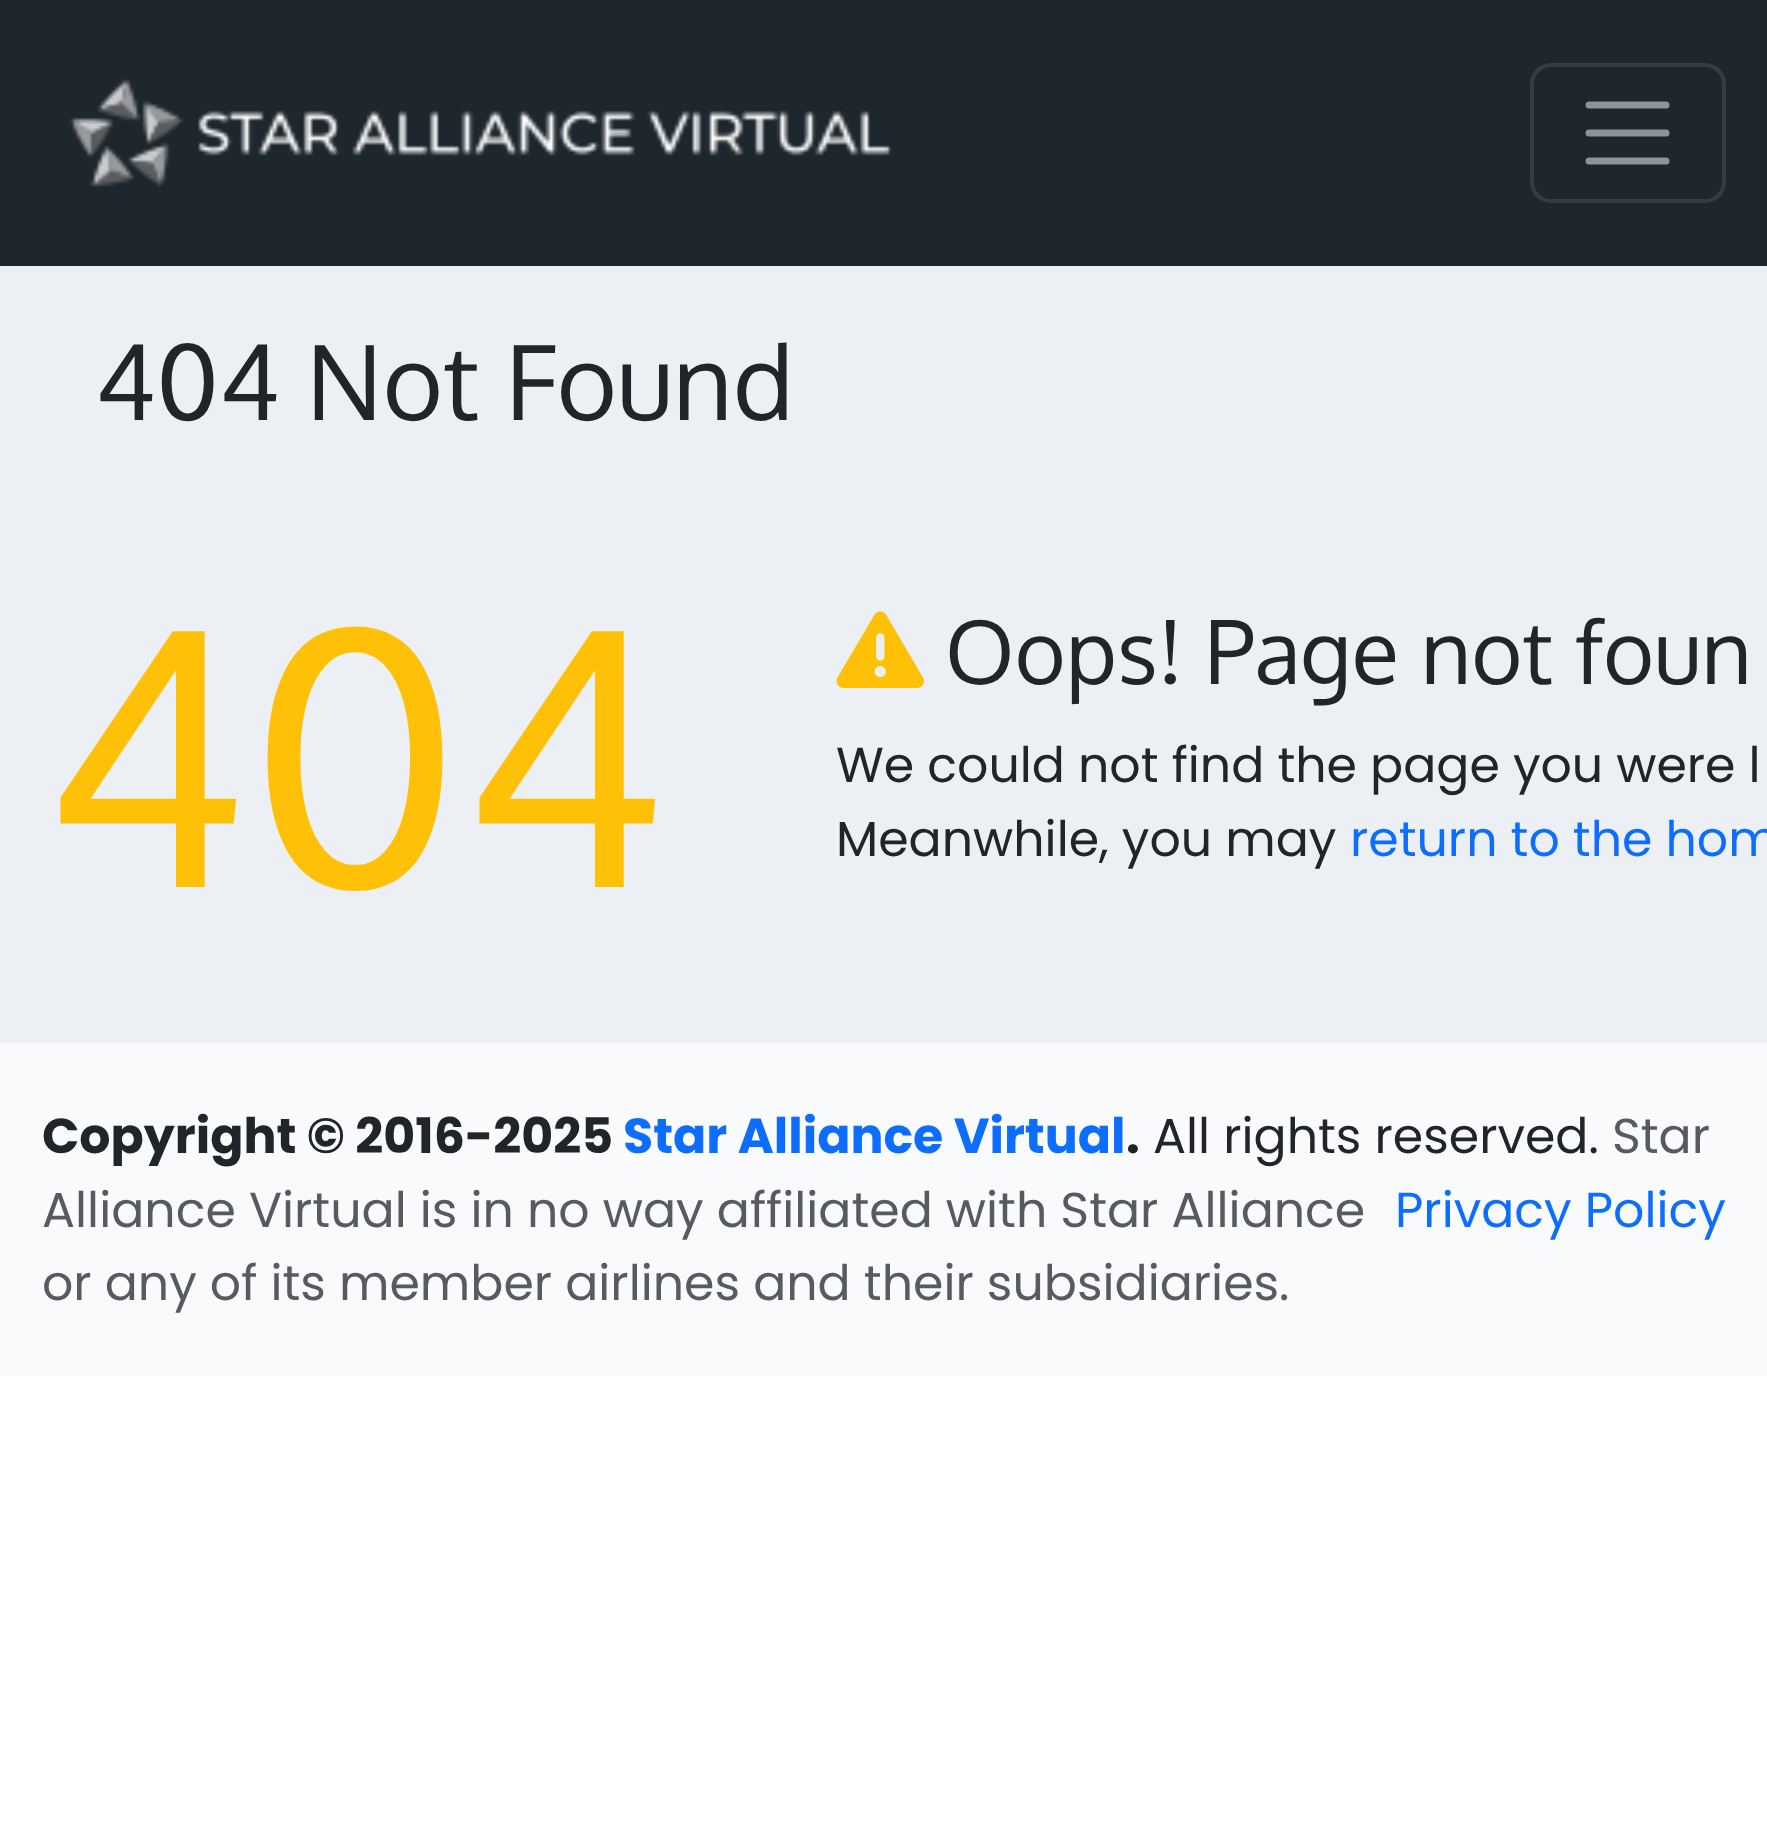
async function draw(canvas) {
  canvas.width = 1767
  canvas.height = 1839
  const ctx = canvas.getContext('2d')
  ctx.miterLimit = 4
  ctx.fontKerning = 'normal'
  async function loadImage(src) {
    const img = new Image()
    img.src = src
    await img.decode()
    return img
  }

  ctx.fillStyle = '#fff'
  ctx.fillRect(0, 0, 1767, 1839)
  ctx.fillStyle = '#f9fafc'
  ctx.fillRect(0, 1043, 1767, 333)
  ctx.fillStyle = '#1e272e'
  ctx.fillRect(0, 0, 1767, 266)
  ctx.drawImage(await loadImage('image0.png'), 69, 79, 822, 108)
  ctx.beginPath()
  ctx.roundRect(1532, 65, 192, 136, 19)
  ctx.strokeStyle = '#353d43'
  ctx.lineWidth = 4
  ctx.stroke()
  ctx.beginPath()
  ctx.moveTo(1589, 105)
  ctx.lineTo(1666, 105)
  ctx.moveTo(1589, 133)
  ctx.lineTo(1666, 133)
  ctx.moveTo(1589, 161)
  ctx.lineTo(1666, 161)
  ctx.strokeStyle = '#8f9397'
  ctx.lineWidth = 7
  ctx.lineCap = 'round'
  ctx.stroke()
  ctx.fillStyle = '#ecf0f5'
  ctx.fillRect(0, 266, 1767, 777)
  ctx.font = '103.5px Oxygen'
  ctx.fillStyle = '#212529'
  ctx.fillText('404 Not Found', 95, 420)
  ctx.font = '350px Oxygen'
  ctx.fillStyle = '#ffc107'
  ctx.fillText('404', 42, 887)
  ctx.drawImage(await loadImage('image1.png'), 836, 611, 88, 77)
  ctx.font = '87.5px Oxygen'
  ctx.fillStyle = '#212529'
  ctx.fillText('Oops! Page not foun', 945, 684)
  ctx.font = '49px Poppins'
  ctx.fillText('We could not find the page you were l', 836, 782)
  ctx.fillText('Meanwhile, you may', 836, 856)
  ctx.fillStyle = '#0d6efd'
  ctx.fillText('return to the hom', 1350, 856)
  ctx.font = 'bold 49px Poppins'
  ctx.fillStyle = '#212529'
  ctx.fillText('Copyright © 2016-2025', 42, 1153)
  ctx.fillStyle = '#0d6efd'
  ctx.fillText('Star Alliance Virtual', 623, 1153)
  ctx.fillStyle = '#212529'
  ctx.fillText('.', 1126, 1153)
  ctx.font = '49px Poppins'
  ctx.fillText('All rights reserved.', 1153, 1153)
  ctx.fillStyle = '#575a5e'
  ctx.fillText('Star', 1612, 1153)
  ctx.fillText('Alliance Virtual is in no way affiliated with Star Alliance', 42, 1227)
  ctx.fillStyle = '#0d6efd'
  ctx.fillText('Privacy Policy', 1395, 1227)
  ctx.fillStyle = '#575a5e'
  ctx.fillText('or any of its member airlines and their subsidiaries.', 42, 1300)
}

draw(document.querySelector('canvas'))
